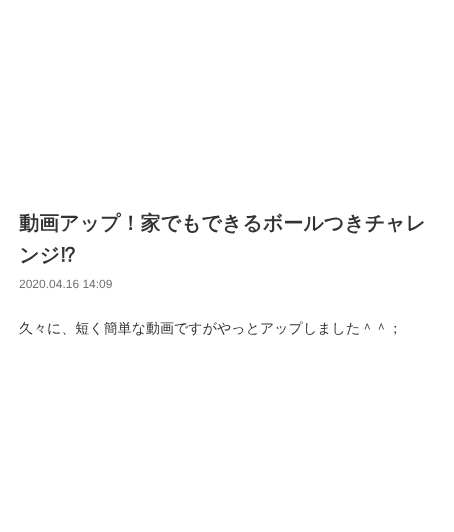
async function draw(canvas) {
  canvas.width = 454
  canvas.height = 532
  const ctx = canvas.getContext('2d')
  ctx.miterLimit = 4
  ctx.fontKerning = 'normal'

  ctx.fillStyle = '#fff'
  ctx.fillRect(0, 0, 454, 532)
  ctx.font = 'bold 20px WenQuanYi Zen Hei'
  ctx.fillStyle = '#333'
  ctx.fillText('動画アップ！家でもできるボールつきチャレ', 19, 230)
  ctx.fillText('ンジ', 19, 262)
  ctx.font = 'bold 20px IPAPGothic'
  ctx.fillText('⁉︎', 60, 262)
  ctx.font = '12px Liberation Sans'
  ctx.fillStyle = '#707070'
  ctx.fillText('2020.04.16 14:09', 19, 288)
  ctx.font = '500 14px WenQuanYi Zen Hei'
  ctx.fillStyle = '#333'
  ctx.fillText('久々に、短く簡単な動画ですがやっとアップしました＾＾；', 19, 333)
}

draw(document.querySelector('canvas'))
